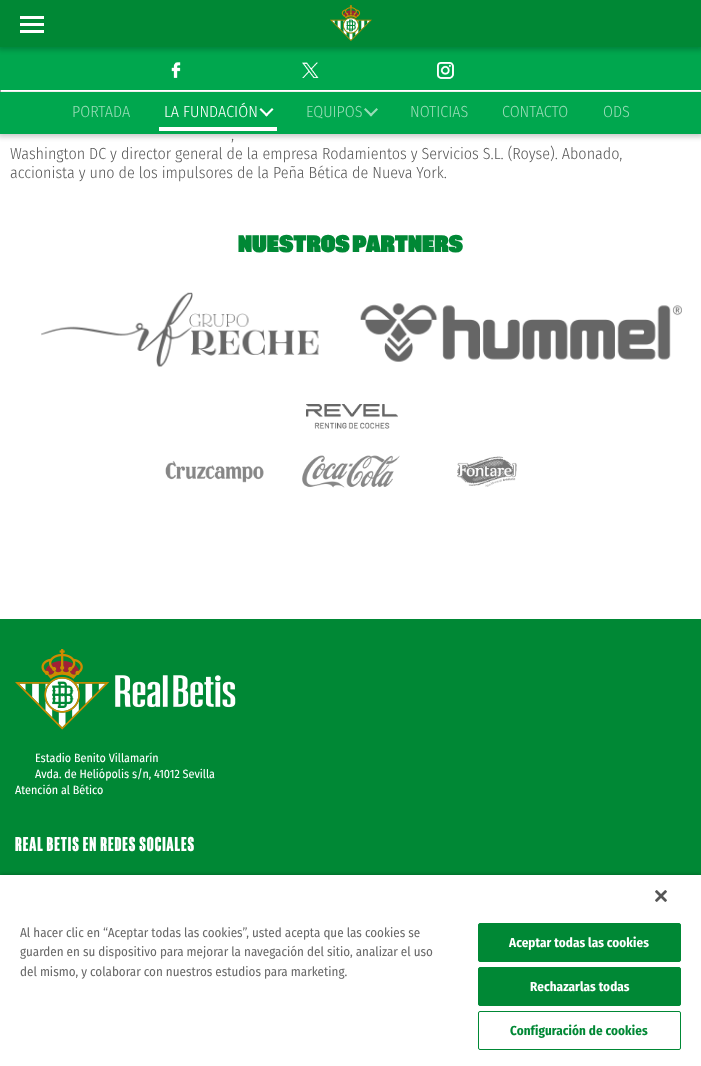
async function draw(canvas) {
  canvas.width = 701
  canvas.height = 1066
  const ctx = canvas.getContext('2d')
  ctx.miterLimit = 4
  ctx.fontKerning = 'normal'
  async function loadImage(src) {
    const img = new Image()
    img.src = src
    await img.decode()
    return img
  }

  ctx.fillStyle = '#fff'
  ctx.fillRect(0, 0, 701, 1066)
  ctx.fillStyle = '#00000033'
  ctx.filter = 'blur(2.5px)'
  ctx.beginPath()
  ctx.rect(-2, -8, 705, 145)
  ctx.fill()
  ctx.filter = 'none'
  ctx.fillStyle = '#00a74e'
  ctx.fillRect(0, 47, 701, 87)
  ctx.fillStyle = '#00000033'
  ctx.filter = 'blur(2.5px)'
  ctx.beginPath()
  ctx.rect(-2, -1, 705, 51)
  ctx.fill()
  ctx.filter = 'none'
  ctx.fillStyle = '#008835'
  ctx.fillRect(0, 0, 701, 47)
  ctx.fillStyle = '#fff'
  ctx.fillRect(20, 23, 24, 3)
  ctx.fillRect(20, 16, 24, 3)
  ctx.fillRect(20, 30, 24, 3)
  ctx.drawImage(await loadImage('image0.png'), 330, 5, 42, 36)
  ctx.drawImage(await loadImage('image1.png'), 171, 62, 10, 16)
  ctx.drawImage(await loadImage('image2.png'), 302, 62, 17, 16)
  ctx.drawImage(await loadImage('image3.png'), 437, 62, 17, 17)
  ctx.fillRect(0, 90, 701, 1)
  ctx.fillStyle = '#eee'
  ctx.fillRect(700, 90, 1, 2)
  ctx.fillRect(0, 91, 701, 1)
  ctx.fillStyle = '#9f9f9f'
  ctx.fillRect(0, 90, 1, 2)
  ctx.font = '300 16px Fira Sans Condensed'
  ctx.fillStyle = '#99dcb8'
  ctx.fillText('PORTADA', 72, 117)
  ctx.fillStyle = '#fff'
  ctx.fillText('LA FUNDACIÓN', 164, 117)
  ctx.beginPath()
  ctx.moveTo(272, 108)
  ctx.lineTo(273.5, 109.5)
  ctx.lineTo(266.5, 116.5)
  ctx.lineTo(265, 115)
  ctx.closePath()
  ctx.fill()
  ctx.beginPath()
  ctx.moveTo(261, 108)
  ctx.lineTo(268, 115)
  ctx.lineTo(266.5, 116.5)
  ctx.lineTo(259.5, 109.5)
  ctx.closePath()
  ctx.fill()
  ctx.fillRect(159, 127, 118, 4)
  ctx.fillStyle = '#99dcb8'
  ctx.fillText('EQUIPOS', 306, 117)
  ctx.beginPath()
  ctx.moveTo(376.5, 108)
  ctx.lineTo(378, 109.5)
  ctx.lineTo(371, 116.5)
  ctx.lineTo(369.5, 115)
  ctx.closePath()
  ctx.fill()
  ctx.beginPath()
  ctx.moveTo(365.5, 108)
  ctx.lineTo(372.5, 115)
  ctx.lineTo(371, 116.5)
  ctx.lineTo(364, 109.5)
  ctx.closePath()
  ctx.fill()
  ctx.fillText('NOTICIAS', 410, 117)
  ctx.fillText('CONTACTO', 502, 117)
  ctx.fillText('ODS', 603, 117)
  ctx.fillStyle = '#585858'
  ctx.fillText(',', 231, 140)
  ctx.fillText('Washington DC y director general de la empresa Rodamientos y Servicios S.L. (Royse). Abonado,', 10, 159)
  ctx.fillText('accionista y uno de los impulsores de la Peña Bética de Nueva York.', 10, 178)
  ctx.font = 'bold 24px "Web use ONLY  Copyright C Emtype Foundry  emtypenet"'
  ctx.fillStyle = '#008835'
  ctx.fillText('NUESTROS PARTNERS', 238, 252)
  ctx.drawImage(await loadImage('image4.png'), 41, 292, 278, 75)
  ctx.drawImage(await loadImage('image5.png'), 360, 303, 322, 59)
  ctx.drawImage(await loadImage('image6.png'), 306, 404, 92, 25)
  ctx.drawImage(await loadImage('image7.png'), 165, 460, 99, 23)
  ctx.drawImage(await loadImage('image8.png'), 302, 455, 98, 33)
  ctx.drawImage(await loadImage('image9.png'), 457, 456, 60, 31)
  ctx.fillRect(0, 619, 701, 256)
  ctx.drawImage(await loadImage('image10.png'), 15, 649, 221, 81)
  ctx.font = '12px Fira Sans Condensed'
  ctx.fillStyle = '#fff'
  ctx.fillText('Estadio Benito Villamarín', 35, 762)
  ctx.fillText('Avda. de Heliópolis s/n, 41012 Sevilla', 35, 778)
  ctx.fillText('Atención al Bético', 15, 794)
  ctx.letterSpacing = '1px'
  ctx.font = '500 20px "Web use ONLY  Copyright C Emtype Foundry  emtypenet"'
  ctx.fillText('REAL BETIS EN REDES SOCIALES', 15, 851)
  ctx.fillStyle = '#00000059'
  ctx.filter = 'blur(2px)'
  ctx.beginPath()
  ctx.rect(0, 875, 701, 191)
  ctx.fill()
  ctx.filter = 'none'
  ctx.fillStyle = '#fff'
  ctx.fillRect(0, 875, 701, 191)
  ctx.drawImage(await loadImage('image11.png'), 655, 890, 12, 12)
  ctx.letterSpacing = '0px'
  ctx.font = '13px Fira Sans Condensed'
  ctx.fillStyle = '#696969'
  ctx.fillText('Al hacer clic en “Aceptar todas las cookies”, usted acepta que las cookies se', 20, 937)
  ctx.fillText('guarden en su dispositivo para mejorar la navegación del sitio, analizar el uso', 20, 956)
  ctx.fillText('del mismo, y colaborar con nuestros estudios para marketing.', 20, 976)
  ctx.fillStyle = '#008835'
  ctx.beginPath()
  ctx.roundRect(478.5, 923.5, 202, 38, 1.5)
  ctx.fill()
  ctx.strokeStyle = '#008835'
  ctx.stroke()
  ctx.letterSpacing = '0.1px'
  ctx.font = 'bold 13px Fira Sans Condensed'
  ctx.fillStyle = '#fff'
  ctx.fillText('Aceptar todas las cookies', 509, 947)
  ctx.fillStyle = '#008835'
  ctx.beginPath()
  ctx.roundRect(478.5, 967.5, 202, 38, 1.5)
  ctx.fill()
  ctx.stroke()
  ctx.fillStyle = '#fff'
  ctx.fillText('Rechazarlas todas', 530, 991)
  ctx.beginPath()
  ctx.roundRect(478.5, 1011.5, 202, 38, 1.5)
  ctx.stroke()
  ctx.fillStyle = '#008835'
  ctx.fillText('Configuración de cookies', 510, 1035)
}

draw(document.querySelector('canvas'))
